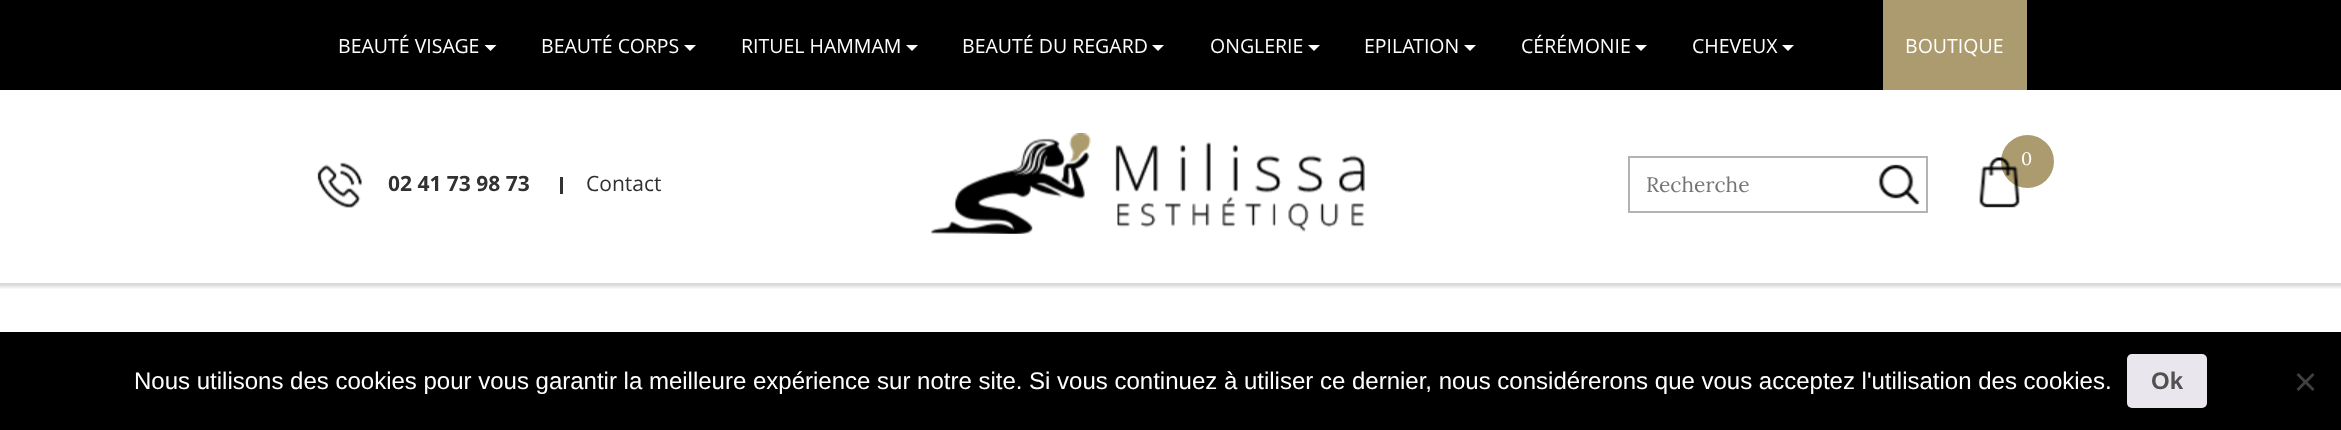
async function draw(canvas) {
  canvas.width = 2341
  canvas.height = 430
  const ctx = canvas.getContext('2d')
  ctx.miterLimit = 4
  ctx.fontKerning = 'normal'
  async function loadImage(src) {
    const img = new Image()
    img.src = src
    await img.decode()
    return img
  }

  ctx.fillStyle = '#fff'
  ctx.fillRect(0, 0, 2341, 430)
  ctx.fillStyle = '#000'
  ctx.fillRect(0, 0, 2341, 90)
  ctx.font = '19.5px Open Sans'
  ctx.fillStyle = '#fff'
  ctx.fillText('BEAUTÉ VISAGE', 338, 53)
  ctx.beginPath()
  ctx.moveTo(484.5, 45)
  ctx.lineTo(496.5, 45)
  ctx.lineTo(490.5, 51)
  ctx.closePath()
  ctx.fill()
  ctx.fillText('BEAUTÉ CORPS', 541, 53)
  ctx.beginPath()
  ctx.moveTo(684, 45)
  ctx.lineTo(696, 45)
  ctx.lineTo(690, 51)
  ctx.closePath()
  ctx.fill()
  ctx.fillText('RITUEL HAMMAM', 741, 53)
  ctx.beginPath()
  ctx.moveTo(906, 45)
  ctx.lineTo(918, 45)
  ctx.lineTo(912, 51)
  ctx.closePath()
  ctx.fill()
  ctx.fillText('BEAUTÉ DU REGARD', 962, 53)
  ctx.beginPath()
  ctx.moveTo(1152, 45)
  ctx.lineTo(1164, 45)
  ctx.lineTo(1158, 51)
  ctx.closePath()
  ctx.fill()
  ctx.fillText('ONGLERIE', 1210, 53)
  ctx.beginPath()
  ctx.moveTo(1308, 45)
  ctx.lineTo(1320, 45)
  ctx.lineTo(1314, 51)
  ctx.closePath()
  ctx.fill()
  ctx.fillText('EPILATION', 1364, 53)
  ctx.beginPath()
  ctx.moveTo(1464, 45)
  ctx.lineTo(1476, 45)
  ctx.lineTo(1470, 51)
  ctx.closePath()
  ctx.fill()
  ctx.fillText('CÉRÉMONIE', 1521, 53)
  ctx.beginPath()
  ctx.moveTo(1635, 45)
  ctx.lineTo(1647, 45)
  ctx.lineTo(1641, 51)
  ctx.closePath()
  ctx.fill()
  ctx.fillText('CHEVEUX', 1692, 53)
  ctx.beginPath()
  ctx.moveTo(1782, 45)
  ctx.lineTo(1794, 45)
  ctx.lineTo(1788, 51)
  ctx.closePath()
  ctx.fill()
  ctx.fillStyle = '#ac9b6e'
  ctx.fillRect(1883, 0, 144, 90)
  ctx.fillStyle = '#fff'
  ctx.fillText('BOUTIQUE', 1905, 53)
  ctx.drawImage(await loadImage('image0.png'), 317, 162, 45, 46)
  ctx.font = 'bold 21px Open Sans'
  ctx.fillStyle = '#313131'
  ctx.fillText('02 41 73 98 73', 388, 191)
  ctx.fillStyle = '#333'
  ctx.fillRect(560, 177, 3, 17)
  ctx.font = '21px Open Sans'
  ctx.fillStyle = '#313131'
  ctx.fillText('Contact', 586, 191)
  ctx.drawImage(await loadImage('image1.png'), 931, 133, 434, 101)
  ctx.fillStyle = '#ac9b6e'
  ctx.beginPath()
  ctx.arc(2027.5, 161.5, 26.5, 0, 2 * Math.PI)
  ctx.fill()
  ctx.drawImage(await loadImage('image2.png'), 1979, 157, 41, 51)
  ctx.font = '18px Lora'
  ctx.fillStyle = '#fff'
  ctx.fillText('0', 2021, 165)
  ctx.strokeStyle = '#b3b3b3'
  ctx.lineWidth = 2
  ctx.strokeRect(1629, 157, 298, 55)
  ctx.font = '21px Lora'
  ctx.fillStyle = '#757575'
  ctx.fillText('Recherche', 1646, 192)
  ctx.drawImage(await loadImage('image3.png'), 1878, 164, 42, 41)
  ctx.drawImage(await loadImage('image4.png'), 0, 283, 2341, 6)
  ctx.fillStyle = '#000'
  ctx.fillRect(0, 332, 2341, 98)
  ctx.font = '24px Liberation Sans'
  ctx.fillStyle = '#fff'
  ctx.fillText('Nous utilisons des cookies pour vous garantir la meilleure expérience sur notre site. Si vous continuez à utiliser ce dernier, nous considérerons que vous acceptez l\'utilisation des cookies.', 134, 389)
  ctx.fillStyle = '#e9e6ed'
  ctx.beginPath()
  ctx.roundRect(2127, 354, 80, 54, 5)
  ctx.fill()
  ctx.font = 'bold 24px Liberation Sans'
  ctx.fillStyle = '#515151'
  ctx.fillText('Ok', 2151, 389)
  ctx.fillStyle = '#404040'
  ctx.beginPath()
  ctx.moveTo(2312.5, 373)
  ctx.lineTo(2314.5, 375)
  ctx.lineTo(2298.5, 391)
  ctx.lineTo(2296.5, 389)
  ctx.closePath()
  ctx.fill()
  ctx.beginPath()
  ctx.moveTo(2296.5, 375)
  ctx.lineTo(2298.5, 373)
  ctx.lineTo(2314.5, 389)
  ctx.lineTo(2312.5, 391)
  ctx.closePath()
  ctx.fill()
}

draw(document.querySelector('canvas'))
